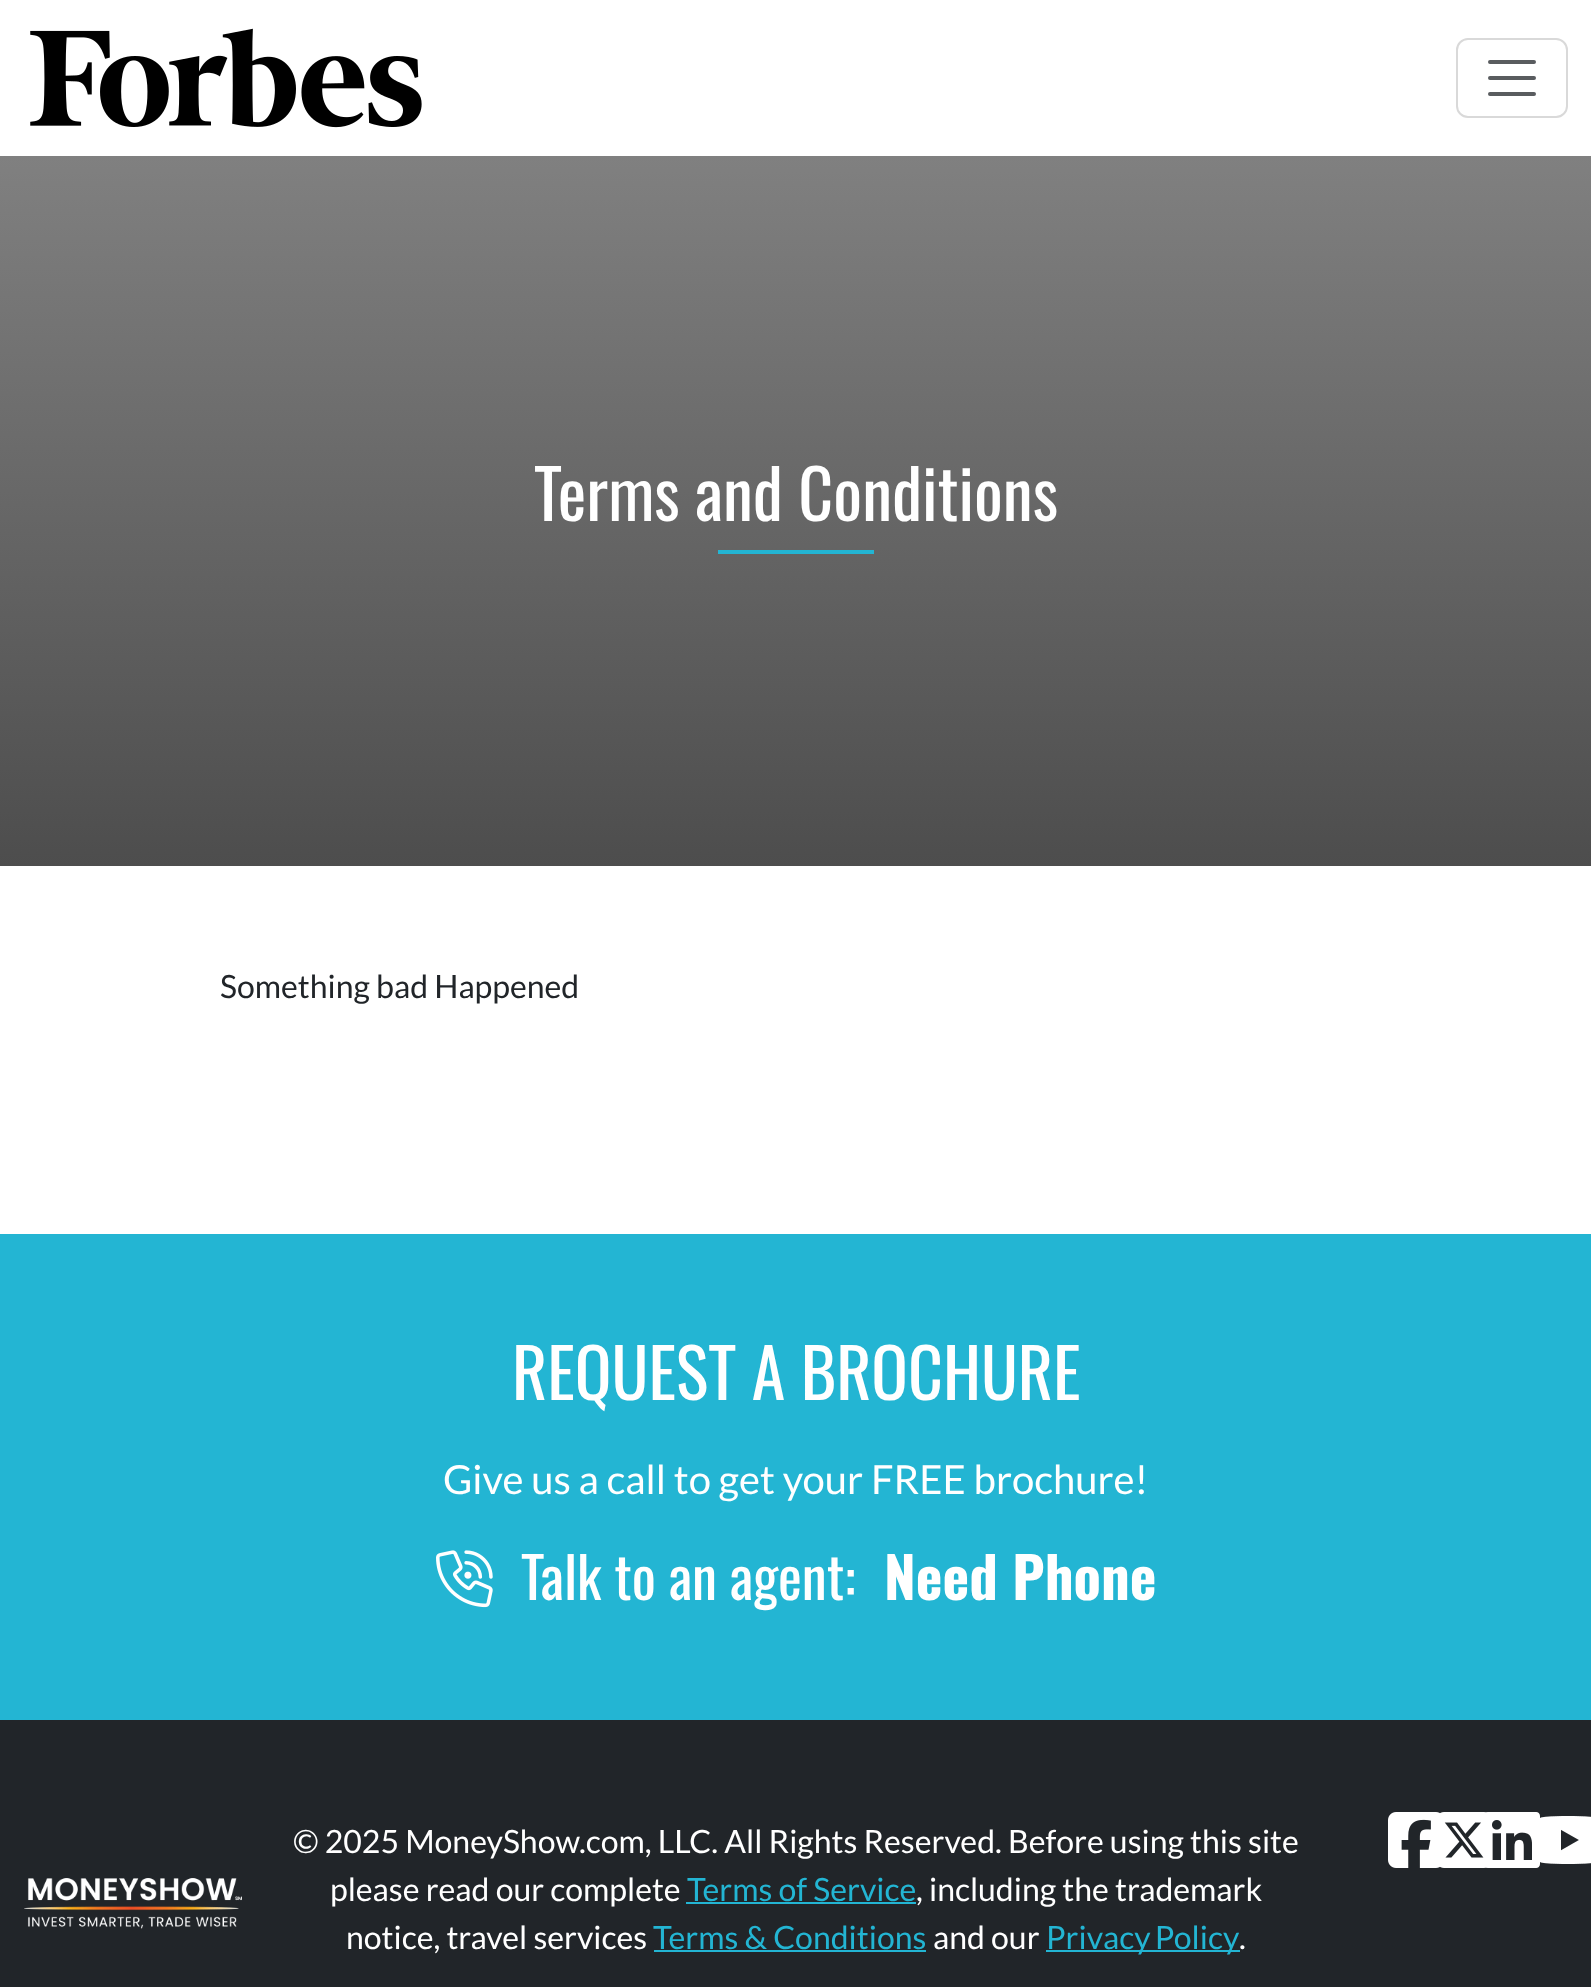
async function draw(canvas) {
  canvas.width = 1591
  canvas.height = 1987
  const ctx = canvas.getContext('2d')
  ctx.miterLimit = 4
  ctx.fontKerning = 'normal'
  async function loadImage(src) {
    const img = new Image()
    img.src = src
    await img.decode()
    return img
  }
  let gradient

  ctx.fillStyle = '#fff'
  ctx.fillRect(0, 0, 1591, 1987)
  ctx.drawImage(await loadImage('image0.png'), 30, 28, 392, 100)
  ctx.beginPath()
  ctx.roundRect(1457, 39, 110, 78, 11)
  ctx.strokeStyle = '#d9d9d9'
  ctx.lineWidth = 2
  ctx.stroke()
  ctx.beginPath()
  ctx.moveTo(1490, 62)
  ctx.lineTo(1534, 62)
  ctx.moveTo(1490, 78)
  ctx.lineTo(1534, 78)
  ctx.moveTo(1490, 94)
  ctx.lineTo(1534, 94)
  ctx.strokeStyle = '#595c5f'
  ctx.lineWidth = 4
  ctx.lineCap = 'round'
  ctx.stroke()
  gradient = ctx.createLinearGradient(796, 156, 796, 866)
  gradient.addColorStop(0, '#808080')
  gradient.addColorStop(1, '#4d4d4d')
  ctx.fillStyle = gradient
  ctx.fillRect(0, 156, 1591, 710)
  ctx.font = '67.9px Oswald'
  ctx.fillStyle = '#fff'
  ctx.fillText('Terms and Conditions', 534, 521)
  ctx.fillStyle = '#23b5d3'
  ctx.fillRect(718, 550, 156, 4)
  ctx.font = '32px Lato'
  ctx.fillStyle = '#212529'
  ctx.fillText('Something bad Happened', 220, 998)
  ctx.fillStyle = '#23b5d3'
  ctx.fillRect(0, 1234, 1591, 486)
  ctx.font = '67.9px Oswald'
  ctx.fillStyle = '#fff'
  ctx.fillText('REQUEST A BROCHURE', 512, 1400)
  ctx.font = '40px Lato'
  ctx.fillText('Give us a call to get your FREE brochure!', 443, 1494)
  ctx.drawImage(await loadImage('image1.png'), 436, 1550, 57, 58)
  ctx.font = '56.75px Oswald'
  ctx.fillText('Talk to an agent:', 521, 1600)
  ctx.font = 'bold 56.75px Oswald'
  ctx.fillText('Need Phone', 884, 1600)
  ctx.fillStyle = '#212529'
  ctx.fillRect(0, 1720, 1591, 267)
  ctx.drawImage(await loadImage('image2.png'), 24, 1878, 218, 51)
  ctx.font = '32px Lato'
  ctx.fillStyle = '#fff'
  ctx.fillText('© 2025 MoneyShow.com, LLC. All Rights Reserved. Before using this site', 293, 1853)
  ctx.fillText('please read our complete', 330, 1901)
  ctx.fillStyle = '#23b5d3'
  ctx.fillText('Terms of Service', 687, 1901)
  ctx.fillRect(686, 1902, 230, 2)
  ctx.fillStyle = '#fff'
  ctx.fillText(', including the trademark', 916, 1901)
  ctx.fillText('notice, travel services', 346, 1949)
  ctx.fillStyle = '#23b5d3'
  ctx.fillText('Terms & Conditions', 653, 1949)
  ctx.fillRect(654, 1950, 272, 2)
  ctx.fillStyle = '#fff'
  ctx.fillText('and our', 933, 1949)
  ctx.fillStyle = '#23b5d3'
  ctx.fillRect(1046, 1950, 194, 2)
  ctx.wordSpacing = '-2px'
  ctx.fillText('Privacy Policy', 1046, 1949)
  ctx.wordSpacing = '0px'
  ctx.fillStyle = '#fff'
  ctx.fillText('.', 1239, 1949)
  ctx.drawImage(await loadImage('image3.png'), 1388, 1812, 53, 56)
  ctx.drawImage(await loadImage('image4.png'), 1440, 1812, 48, 56)
  ctx.drawImage(await loadImage('image5.png'), 1485, 1812, 55, 56)
  ctx.drawImage(await loadImage('image6.png'), 1540, 1816, 51, 48)
}

draw(document.querySelector('canvas'))
